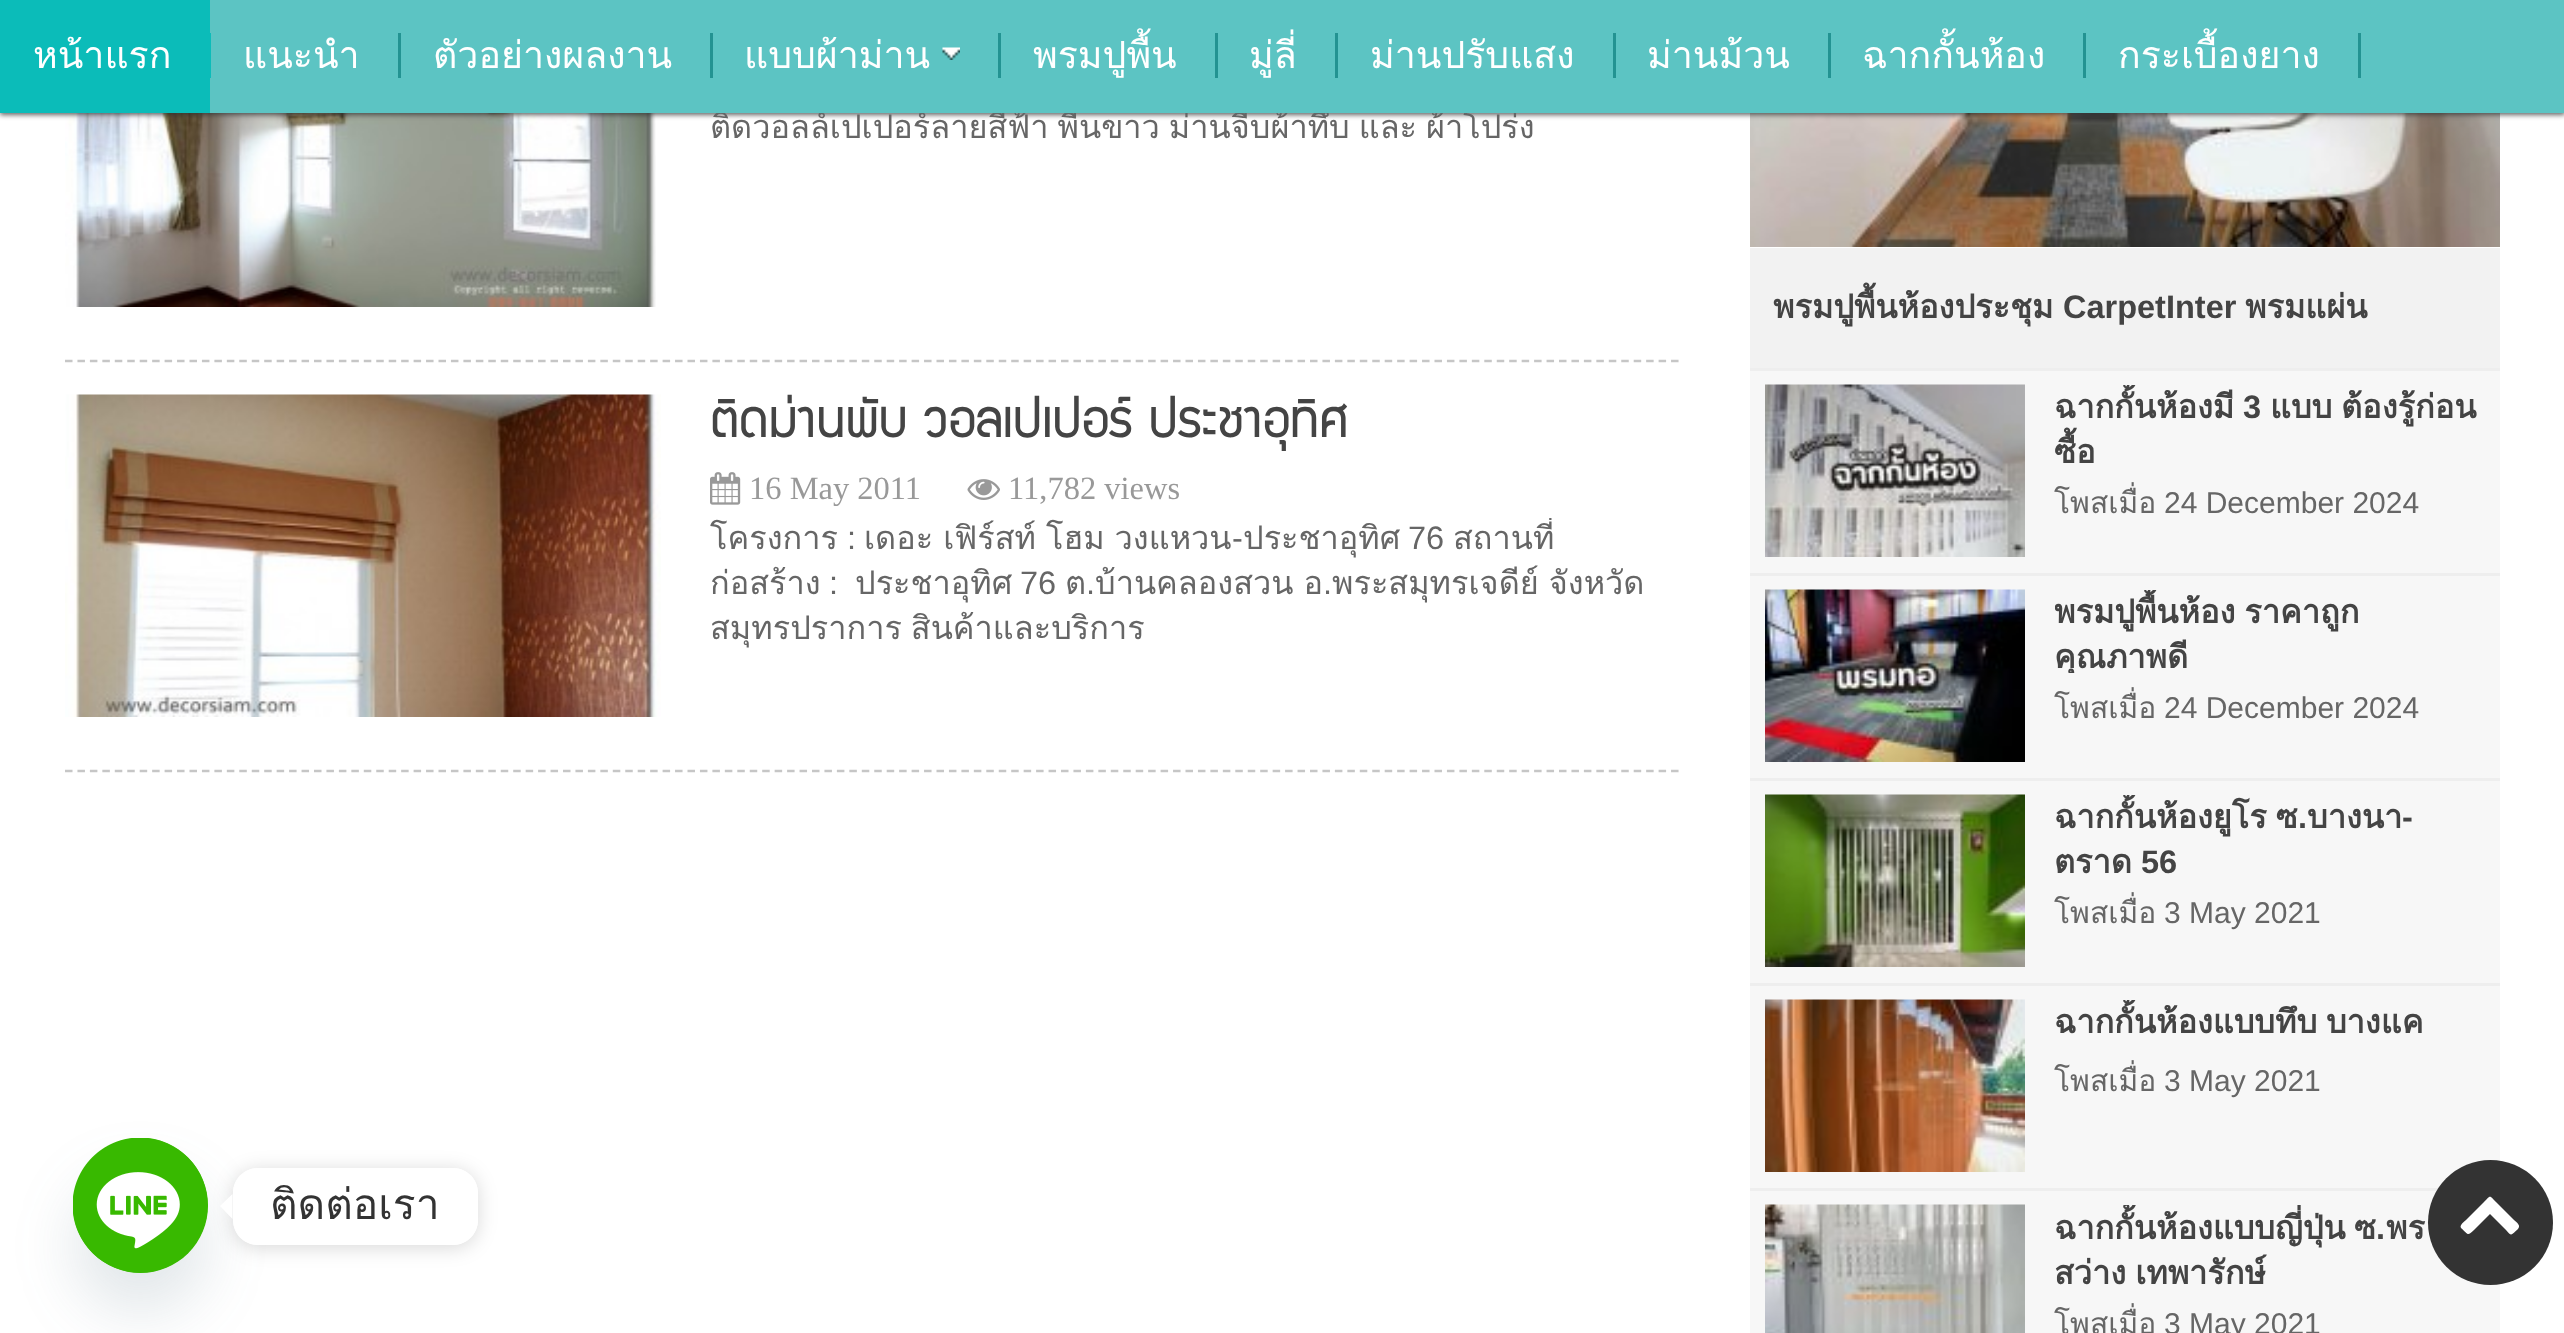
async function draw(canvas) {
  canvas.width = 2564
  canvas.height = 1333
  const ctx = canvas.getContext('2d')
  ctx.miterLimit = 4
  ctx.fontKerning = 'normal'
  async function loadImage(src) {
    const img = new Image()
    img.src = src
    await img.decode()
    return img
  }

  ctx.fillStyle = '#fff'
  ctx.fillRect(0, 0, 2564, 1333)
  ctx.drawImage(await loadImage('image2.png'), 65, 113, 591, 194)
  ctx.drawImage(await loadImage('image6.png'), 1750, 113, 750, 134)
  ctx.fillStyle = '#323232bf'
  ctx.filter = 'blur(2.5px)'
  ctx.beginPath()
  ctx.rect(0, 3, 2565, 112)
  ctx.fill()
  ctx.filter = 'none'
  ctx.save()
  ctx.beginPath()
  ctx.rect(710, 105, 938, 45)
  ctx.clip()
  ctx.wordSpacing = '-2px'
  ctx.font = '32.5px Loma'
  ctx.fillStyle = '#666'
  ctx.fillText('ติดวอลล์เปเปอร์ลายสีฟ้า พื้นขาว ม่านจีบผ้าทึบ และ ผ้าโปร่ง', 710, 138)
  ctx.restore()
  ctx.fillStyle = '#5cc4c3'
  ctx.fillRect(210, 0, 2354, 113)
  ctx.fillStyle = '#0bbcb9'
  ctx.fillRect(0, 0, 210, 113)
  ctx.fillRect(210, 33, 1, 45)
  ctx.font = '37.5px Loma'
  ctx.fillStyle = '#fff'
  ctx.fillText('หน้าแรก', 33, 68)
  ctx.fillStyle = '#239392'
  ctx.fillRect(398, 33, 3, 45)
  ctx.fillStyle = '#fff'
  ctx.fillText('แนะนำ', 243, 68)
  ctx.fillStyle = '#239392'
  ctx.fillRect(710, 33, 3, 45)
  ctx.fillStyle = '#fff'
  ctx.fillText('ตัวอย่างผลงาน', 433, 68)
  ctx.fillStyle = '#239392'
  ctx.fillRect(998, 33, 3, 45)
  ctx.fillStyle = '#fff'
  ctx.fillText('แบบผ้าม่าน', 744, 68)
  ctx.drawImage(await loadImage('image0.png'), 942, 47, 18, 13)
  ctx.fillStyle = '#239392'
  ctx.fillRect(1215, 33, 3, 45)
  ctx.fillStyle = '#fff'
  ctx.fillText('พรมปูพื้น', 1033, 68)
  ctx.fillStyle = '#239392'
  ctx.fillRect(1335, 33, 3, 45)
  ctx.fillStyle = '#fff'
  ctx.fillText('มู่ลี่', 1249, 68)
  ctx.fillStyle = '#239392'
  ctx.fillRect(1613, 33, 3, 45)
  ctx.fillStyle = '#fff'
  ctx.fillText('ม่านปรับแสง', 1370, 68)
  ctx.fillStyle = '#239392'
  ctx.fillRect(1828, 33, 3, 45)
  ctx.fillStyle = '#fff'
  ctx.fillText('ม่านม้วน', 1647, 68)
  ctx.fillStyle = '#239392'
  ctx.fillRect(2083, 33, 3, 45)
  ctx.fillStyle = '#fff'
  ctx.fillText('ฉากกั้นห้อง', 1862, 68)
  ctx.fillStyle = '#239392'
  ctx.fillRect(2358, 33, 3, 45)
  ctx.fillStyle = '#fff'
  ctx.fillText('กระเบื้องยาง', 2118, 68)
  ctx.fillStyle = '#49687e29'
  ctx.filter = 'blur(30px)'
  ctx.beginPath()
  ctx.roundRect(73, 1178, 135, 135, 67.5)
  ctx.fill()
  ctx.filter = 'none'
  ctx.fillStyle = '#38b900'
  ctx.beginPath()
  ctx.arc(140.5, 1205.5, 67.5, 0, 2 * Math.PI)
  ctx.fill()
  ctx.drawImage(await loadImage('image1.png'), 73, 1138, 135, 135)
  ctx.save()
  ctx.beginPath()
  ctx.moveTo(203, 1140)
  ctx.lineTo(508, 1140)
  ctx.lineTo(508, 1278)
  ctx.lineTo(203, 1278)
  ctx.closePath()
  ctx.moveTo(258, 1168)
  ctx.lineTo(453, 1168)
  ctx.bezierCurveTo(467, 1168, 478, 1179, 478, 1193)
  ctx.lineTo(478, 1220)
  ctx.bezierCurveTo(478, 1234, 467, 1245, 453, 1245)
  ctx.lineTo(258, 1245)
  ctx.bezierCurveTo(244, 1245, 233, 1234, 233, 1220)
  ctx.lineTo(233, 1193)
  ctx.bezierCurveTo(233, 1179, 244, 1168, 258, 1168)
  ctx.closePath()
  ctx.clip('evenodd')
  ctx.fillStyle = '#00000026'
  ctx.filter = 'blur(9.5px)'
  ctx.beginPath()
  ctx.roundRect(233, 1170, 245, 78, 25)
  ctx.fill()
  ctx.filter = 'none'
  ctx.restore()
  ctx.fillStyle = '#fff'
  ctx.beginPath()
  ctx.roundRect(233, 1168, 245, 77, 25)
  ctx.fill()
  ctx.beginPath()
  ctx.moveTo(232.5, 1194)
  ctx.lineTo(232.5, 1219)
  ctx.lineTo(220, 1206)
  ctx.closePath()
  ctx.fill()
  ctx.font = '42.5px Loma'
  ctx.fillStyle = '#333'
  ctx.fillText('ติดต่อเรา', 270, 1219)
  ctx.beginPath()
  ctx.moveTo(65, 361)
  ctx.lineTo(1680, 361)
  ctx.strokeStyle = '#c6c6c6'
  ctx.lineWidth = 2.5
  ctx.setLineDash([7.5, 4.95])
  ctx.stroke()
  ctx.beginPath()
  ctx.moveTo(65, 771)
  ctx.lineTo(1680, 771)
  ctx.stroke()
  ctx.drawImage(await loadImage('image3.png'), 65, 394, 596, 323)
  ctx.font = '57.5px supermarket'
  ctx.fillStyle = '#444'
  ctx.fillText('ติดม่านพับ วอลเปเปอร์ ประชาอุทิศ', 710, 437)
  ctx.drawImage(await loadImage('image4.png'), 710, 472, 31, 33)
  ctx.font = '32.5px Liberation Serif'
  ctx.fillStyle = '#999'
  ctx.fillText('16 May 2011', 749, 499)
  ctx.drawImage(await loadImage('image5.png'), 967, 479, 33, 21)
  ctx.fillText('11,782 views', 1008, 499)
  ctx.font = '32.5px Loma'
  ctx.fillStyle = '#666'
  ctx.fillText('โครงการ', 710, 549)
  ctx.font = '32.5px Liberation Sans'
  ctx.fillText(':', 847, 549)
  ctx.wordSpacing = '-1px'
  ctx.font = '32.5px Loma'
  ctx.fillText('เดอะ เฟิร์สท์ โฮม วงแหวน', 864, 549)
  ctx.wordSpacing = '0px'
  ctx.font = '32.5px Liberation Sans'
  ctx.fillText('-', 1232, 549)
  ctx.font = '32.5px Loma'
  ctx.fillText('ประชาอุทิศ', 1243, 549)
  ctx.font = '32.5px Liberation Sans'
  ctx.fillText('76', 1408, 549)
  ctx.save()
  ctx.beginPath()
  ctx.rect(710, 518, 938, 135)
  ctx.clip()
  ctx.font = '32.5px Loma'
  ctx.fillText('สถานที่', 1453, 549)
  ctx.fillText('ก่อสร้าง', 710, 594)
  ctx.restore()
  ctx.fillText(':', 829, 594)
  ctx.font = '32.5px Loma'
  ctx.fillText('ประชาอุทิศ', 855, 594)
  ctx.font = '32.5px Liberation Sans'
  ctx.fillText('76', 1020, 594)
  ctx.font = '32.5px Loma'
  ctx.fillText('ต', 1065, 594)
  ctx.font = '32.5px Liberation Sans'
  ctx.fillText('.', 1086, 594)
  ctx.wordSpacing = '-1px'
  ctx.font = '32.5px Loma'
  ctx.fillText('บ้านคลองสวน อ', 1095, 594)
  ctx.fillText('พระสมุทรเจดีย์ จังหวัด', 1332, 594)
  ctx.wordSpacing = '0px'
  ctx.font = '32.5px Liberation Sans'
  ctx.fillText('.', 1323, 594)
  ctx.wordSpacing = '-2px'
  ctx.font = '32.5px Loma'
  ctx.fillText('สมุทรปราการ สินค้าและบริการ', 710, 639)
  ctx.fillStyle = '#f2f2f2'
  ctx.fillRect(1750, 248, 750, 120)
  ctx.wordSpacing = '0px'
  ctx.font = 'bold 32.5px Loma'
  ctx.fillStyle = '#444'
  ctx.fillText('พรมปูพื้นห้องประชุม', 1773, 318)
  ctx.font = 'bold 32.5px Liberation Sans'
  ctx.fillText('CarpetInter', 2063, 318)
  ctx.font = 'bold 32.5px Loma'
  ctx.fillText('พรมแผ่น', 2245, 318)
  ctx.fillStyle = '#f7f7f7'
  ctx.fillRect(1750, 371, 750, 202)
  ctx.fillStyle = '#eee'
  ctx.fillRect(1750, 368, 750, 3)
  ctx.drawImage(await loadImage('image7.png'), 1765, 384, 260, 173)
  ctx.save()
  ctx.beginPath()
  ctx.rect(2055, 385, 423, 83)
  ctx.clip()
  ctx.fillStyle = '#444'
  ctx.fillText('ฉากกั้นห้องมี', 2054, 418)
  ctx.restore()
  ctx.font = 'bold 32.5px Liberation Sans'
  ctx.fillStyle = '#444'
  ctx.fillText('3', 2243, 418)
  ctx.font = 'bold 32.5px Loma'
  ctx.fillText('แบบ', 2270, 418)
  ctx.fillText('ต้องรู้ก่อน', 2341, 418)
  ctx.save()
  ctx.beginPath()
  ctx.rect(2055, 385, 423, 83)
  ctx.clip()
  ctx.fillText('ซื้อ', 2054, 463)
  ctx.restore()
  ctx.font = '30px Loma'
  ctx.fillStyle = '#666'
  ctx.fillText('โพสเมื่อ', 2054, 513)
  ctx.font = '30px Liberation Sans'
  ctx.fillText('24 December 2024', 2164, 513)
  ctx.fillStyle = '#f7f7f7'
  ctx.fillRect(1750, 576, 750, 202)
  ctx.fillStyle = '#eee'
  ctx.fillRect(1750, 573, 750, 3)
  ctx.drawImage(await loadImage('image8.png'), 1765, 589, 260, 173)
  ctx.save()
  ctx.beginPath()
  ctx.rect(2055, 590, 423, 83)
  ctx.clip()
  ctx.wordSpacing = '-2px'
  ctx.font = 'bold 32.5px Loma'
  ctx.fillStyle = '#444'
  ctx.fillText('พรมปูพื้นห้อง ราคาถูก', 2054, 623)
  ctx.wordSpacing = '0px'
  ctx.fillText('คุณภาพดี', 2054, 668)
  ctx.restore()
  ctx.font = '30px Loma'
  ctx.fillStyle = '#666'
  ctx.fillText('โพสเมื่อ', 2054, 718)
  ctx.font = '30px Liberation Sans'
  ctx.fillText('24 December 2024', 2164, 718)
  ctx.fillStyle = '#f7f7f7'
  ctx.fillRect(1750, 781, 750, 202)
  ctx.fillStyle = '#eee'
  ctx.fillRect(1750, 778, 750, 3)
  ctx.drawImage(await loadImage('image9.png'), 1765, 794, 260, 173)
  ctx.save()
  ctx.beginPath()
  ctx.rect(2055, 795, 423, 83)
  ctx.clip()
  ctx.wordSpacing = '-2px'
  ctx.font = 'bold 32.5px Loma'
  ctx.fillStyle = '#444'
  ctx.fillText('ฉากกั้นห้องยูโร ซ', 2054, 828)
  ctx.restore()
  ctx.font = 'bold 32.5px Loma'
  ctx.fillStyle = '#444'
  ctx.fillText('บางนา', 2307, 828)
  ctx.font = 'bold 32.5px Liberation Sans'
  ctx.fillText('-', 2402, 828)
  ctx.fillText('.', 2298, 828)
  ctx.font = 'bold 32.5px Loma'
  ctx.fillText('ตราด', 2054, 873)
  ctx.font = 'bold 32.5px Liberation Sans'
  ctx.fillText('56', 2141, 873)
  ctx.font = '30px Loma'
  ctx.fillStyle = '#666'
  ctx.fillText('โพสเมื่อ', 2054, 923)
  ctx.font = '30px Liberation Sans'
  ctx.fillText('3 May 2021', 2164, 923)
  ctx.fillStyle = '#f7f7f7'
  ctx.fillRect(1750, 986, 750, 202)
  ctx.fillStyle = '#eee'
  ctx.fillRect(1750, 983, 750, 3)
  ctx.drawImage(await loadImage('image10.png'), 1765, 999, 260, 173)
  ctx.save()
  ctx.beginPath()
  ctx.rect(2055, 1000, 423, 45)
  ctx.clip()
  ctx.wordSpacing = '-2px'
  ctx.font = 'bold 32.5px Loma'
  ctx.fillStyle = '#444'
  ctx.fillText('ฉากกั้นห้องแบบทึบ บางแค', 2054, 1033)
  ctx.restore()
  ctx.font = '30px Loma'
  ctx.fillStyle = '#666'
  ctx.fillText('โพสเมื่อ', 2054, 1091)
  ctx.font = '30px Liberation Sans'
  ctx.fillText('3 May 2021', 2164, 1091)
  ctx.fillStyle = '#f7f7f7'
  ctx.fillRect(1750, 1191, 750, 142)
  ctx.fillStyle = '#eee'
  ctx.fillRect(1750, 1188, 689, 3)
  ctx.drawImage(await loadImage('image11.png'), 1765, 1204, 260, 129)
  ctx.save()
  ctx.beginPath()
  ctx.rect(2055, 1205, 423, 83)
  ctx.clip()
  ctx.font = 'bold 32.5px Loma'
  ctx.fillStyle = '#444'
  ctx.fillText('ฉากกั้นห้องแบบญี่ปุ่น', 2054, 1239)
  ctx.restore()
  ctx.font = 'bold 32.5px Loma'
  ctx.fillStyle = '#444'
  ctx.fillText('ซ', 2354, 1239)
  ctx.font = 'bold 32.5px Liberation Sans'
  ctx.fillText('.', 2376, 1239)
  ctx.font = 'bold 32.5px Loma'
  ctx.fillText('พร', 2386, 1239)
  ctx.wordSpacing = '-2px'
  ctx.fillText('สว่าง เทพารักษ์', 2054, 1284)
  ctx.wordSpacing = '0px'
  ctx.font = '30px Loma'
  ctx.fillStyle = '#666'
  ctx.fillText('โพสเมื่อ', 2054, 1334)
  ctx.font = '30px Liberation Sans'
  ctx.fillText('3 May 2021', 2164, 1334)
  ctx.fillStyle = '#333'
  ctx.beginPath()
  ctx.arc(2490.5, 1222.5, 62.5, 0, 2 * Math.PI)
  ctx.fill()
  ctx.fillStyle = '#fff'
  ctx.beginPath()
  ctx.moveTo(2461, 1228)
  ctx.bezierCurveTo(2459, 1225, 2465, 1221, 2466, 1220)
  ctx.lineTo(2484, 1202)
  ctx.bezierCurveTo(2491, 1195, 2489, 1195, 2496, 1202)
  ctx.lineTo(2514, 1220)
  ctx.bezierCurveTo(2517, 1223, 2521, 1225, 2518, 1229)
  ctx.bezierCurveTo(2511, 1235, 2512, 1237, 2506, 1230)
  ctx.lineTo(2490, 1214)
  ctx.lineTo(2474, 1230)
  ctx.bezierCurveTo(2467, 1237, 2468, 1234, 2461, 1228)
  ctx.closePath()
  ctx.fill()
}

draw(document.querySelector('canvas'))
